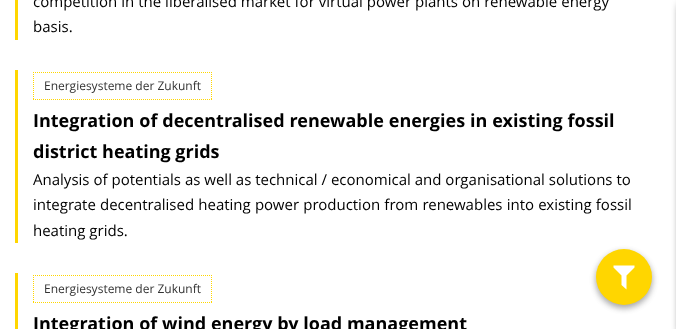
async function draw(canvas) {
  canvas.width = 676
  canvas.height = 329
  const ctx = canvas.getContext('2d')
  ctx.miterLimit = 4
  ctx.fontKerning = 'normal'

  ctx.fillStyle = '#fff'
  ctx.fillRect(0, 0, 676, 329)
  ctx.fillStyle = '#ffd600'
  ctx.fillRect(15, 0, 3, 40)
  ctx.wordSpacing = '0.1px'
  ctx.font = '15px Open Sans'
  ctx.fillStyle = '#000'
  ctx.fillText('competition in the liberalised market for virtual power plants on renewable energy', 33, 7)
  ctx.wordSpacing = '0px'
  ctx.fillText('basis.', 33, 32)
  ctx.fillStyle = '#ffd600'
  ctx.fillRect(15, 70, 3, 173)
  ctx.beginPath()
  ctx.moveTo(33, 72.5)
  ctx.lineTo(212, 72.5)
  ctx.strokeStyle = '#ffd600'
  ctx.setLineDash([1, 1])
  ctx.stroke()
  ctx.beginPath()
  ctx.moveTo(211.5, 72)
  ctx.lineTo(211.5, 100)
  ctx.stroke()
  ctx.beginPath()
  ctx.moveTo(33, 99.5)
  ctx.lineTo(212, 99.5)
  ctx.stroke()
  ctx.beginPath()
  ctx.moveTo(33.5, 72)
  ctx.lineTo(33.5, 100)
  ctx.stroke()
  ctx.font = '12px Open Sans'
  ctx.fillStyle = '#333'
  ctx.fillText('Energiesysteme der Zukunft', 44, 90)
  ctx.wordSpacing = '0.25px'
  ctx.font = 'bold 18px Open Sans'
  ctx.fillStyle = '#000'
  ctx.fillText('Integration of decentralised renewable energies in existing fossil', 33, 127)
  ctx.wordSpacing = '0px'
  ctx.fillText('district heating grids', 33, 158)
  ctx.font = '15px Open Sans'
  ctx.fillText('Analysis of potentials as well as technical / economical and organisational solutions to', 33, 185)
  ctx.wordSpacing = '0.25px'
  ctx.fillText('integrate decentralised heating power production from renewables into existing fossil', 33, 210)
  ctx.wordSpacing = '0px'
  ctx.fillText('heating grids.', 33, 236)
  ctx.fillStyle = '#ffd600'
  ctx.fillRect(15, 273, 3, 56)
  ctx.beginPath()
  ctx.moveTo(33, 275.5)
  ctx.lineTo(212, 275.5)
  ctx.stroke()
  ctx.beginPath()
  ctx.moveTo(211.5, 275)
  ctx.lineTo(211.5, 303)
  ctx.stroke()
  ctx.beginPath()
  ctx.moveTo(33, 302.5)
  ctx.lineTo(212, 302.5)
  ctx.stroke()
  ctx.beginPath()
  ctx.moveTo(33.5, 275)
  ctx.lineTo(33.5, 303)
  ctx.stroke()
  ctx.font = '12px Open Sans'
  ctx.fillStyle = '#333'
  ctx.fillText('Energiesysteme der Zukunft', 44, 293)
  ctx.wordSpacing = '0.1px'
  ctx.font = 'bold 18px Open Sans'
  ctx.fillStyle = '#000'
  ctx.fillText('Integration of wind energy by load management', 33, 330)
  ctx.fillStyle = '#0000003b'
  ctx.filter = 'blur(3px)'
  ctx.beginPath()
  ctx.roundRect(596, 252, 56, 56, 28)
  ctx.fill()
  ctx.filter = 'none'
  ctx.fillStyle = '#00000029'
  ctx.filter = 'blur(3px)'
  ctx.beginPath()
  ctx.roundRect(596, 252, 56, 56, 28)
  ctx.fill()
  ctx.filter = 'none'
  ctx.fillStyle = '#ffd600'
  ctx.beginPath()
  ctx.arc(624, 277, 28, 0, 2 * Math.PI)
  ctx.fill()
  ctx.fillStyle = '#fff'
  ctx.beginPath()
  ctx.moveTo(613.5, 265.5)
  ctx.lineTo(634.5, 265.5)
  ctx.lineTo(634.5, 267.5)
  ctx.lineTo(626.5, 275.5)
  ctx.lineTo(626.5, 289.5)
  ctx.lineTo(621.5, 285)
  ctx.lineTo(621.5, 275.5)
  ctx.lineTo(613.5, 267.5)
  ctx.closePath()
  ctx.fill()
  ctx.fillStyle = '#000'
  ctx.filter = 'blur(4.5px)'
  ctx.beginPath()
  ctx.rect(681, 5, 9, 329)
  ctx.fill()
  ctx.filter = 'none'
}

draw(document.querySelector('canvas'))
